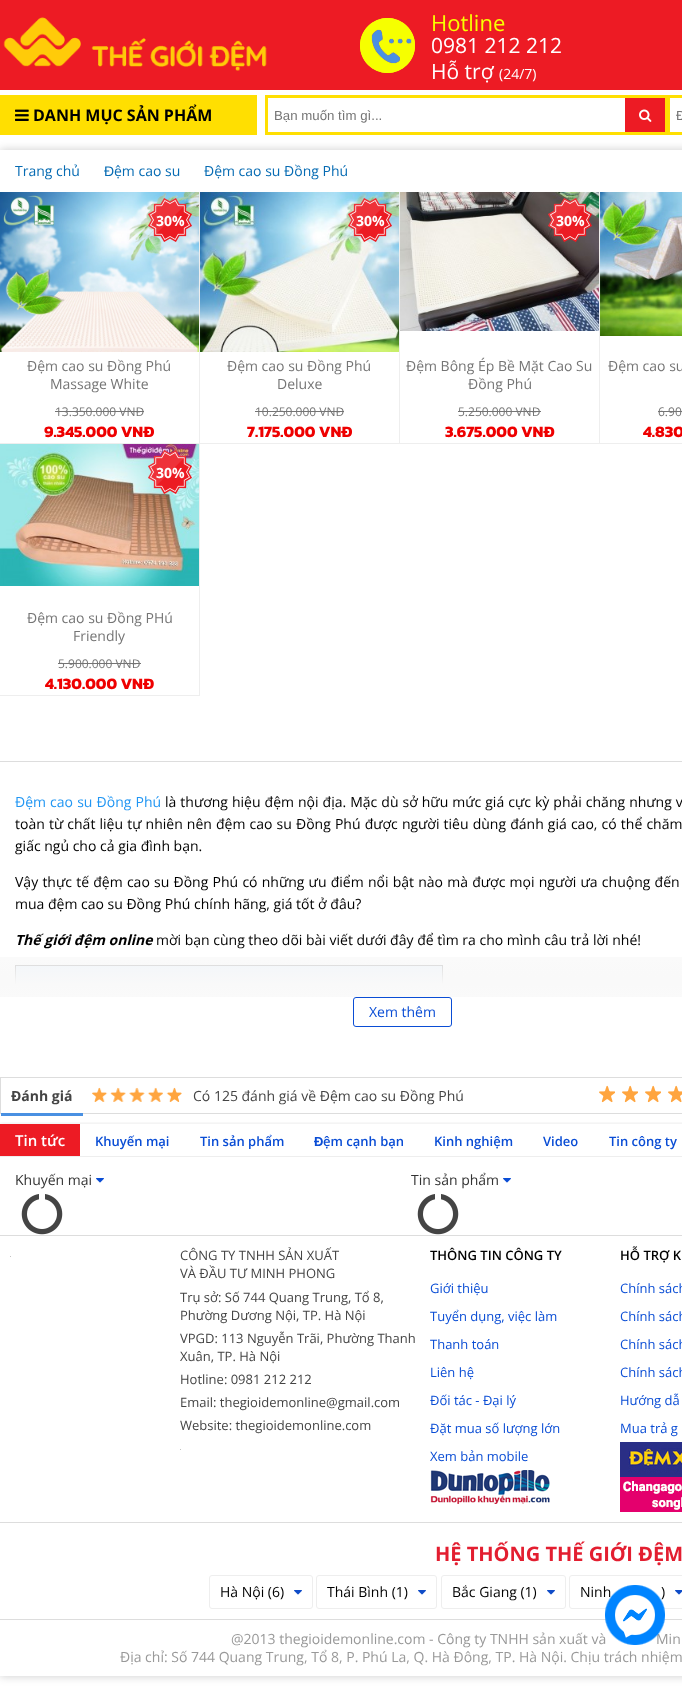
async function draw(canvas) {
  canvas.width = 682
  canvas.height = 1697
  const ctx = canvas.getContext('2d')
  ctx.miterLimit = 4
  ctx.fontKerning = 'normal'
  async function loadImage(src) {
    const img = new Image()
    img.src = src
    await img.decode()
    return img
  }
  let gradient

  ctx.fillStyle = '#fff'
  ctx.fillRect(0, 0, 682, 1697)
  ctx.fillStyle = '#ed1b24'
  ctx.fillRect(0, 0, 682, 90)
  ctx.drawImage(await loadImage('image0.png'), 3, 17, 264, 54)
  ctx.drawImage(await loadImage('image1.png'), 360, 18, 55, 55)
  ctx.font = '22px Open Sans'
  ctx.fillStyle = '#f8ff01'
  ctx.fillText('Hotline', 431, 31)
  ctx.font = '21px Open Sans'
  ctx.fillStyle = '#fff'
  ctx.fillText('0981 212 212', 431, 53)
  ctx.fillText('Hỗ trợ', 431, 79)
  ctx.font = '14px Open Sans'
  ctx.fillText('(24/7)', 499, 79)
  ctx.save()
  ctx.beginPath()
  ctx.moveTo(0, 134)
  ctx.lineTo(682, 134)
  ctx.lineTo(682, 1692)
  ctx.lineTo(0, 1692)
  ctx.closePath()
  ctx.moveTo(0, 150)
  ctx.lineTo(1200, 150)
  ctx.lineTo(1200, 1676)
  ctx.lineTo(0, 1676)
  ctx.closePath()
  ctx.clip('evenodd')
  ctx.fillStyle = '#00000033'
  ctx.filter = 'blur(5px)'
  ctx.beginPath()
  ctx.rect(0, 150, 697, 1526)
  ctx.fill()
  ctx.filter = 'none'
  ctx.restore()
  ctx.fillStyle = '#ffdf01'
  ctx.fillRect(0, 95, 257, 40)
  ctx.drawImage(await loadImage('image2.png'), 15, 109, 14, 12)
  ctx.font = 'bold 16px Open Sans'
  ctx.fillStyle = '#000'
  ctx.fillText('DANH MỤC SẢN PHẨM', 33, 121)
  ctx.fillStyle = '#ffdf01'
  ctx.fillRect(265, 95, 417, 40)
  ctx.fillStyle = '#fff'
  ctx.fillRect(268, 98, 357, 34)
  ctx.font = '13.25px Liberation Sans'
  ctx.fillStyle = '#757575'
  ctx.fillText('Bạn muốn tìm gì...', 274, 120)
  ctx.fillStyle = '#ed1b24'
  ctx.fillRect(625, 98, 40, 34)
  ctx.drawImage(await loadImage('image3.png'), 639, 109, 13, 13)
  ctx.fillStyle = '#fff'
  ctx.fillRect(670, 98, 12, 34)
  ctx.fillStyle = '#757575'
  ctx.fillText('Đ', 676, 120)
  ctx.font = '14px Open Sans'
  ctx.fillStyle = '#066bb3'
  ctx.fillText('Trang chủ', 15, 176)
  ctx.font = '14px Liberation Sans'
  ctx.fillText('Đ', 104, 176)
  ctx.font = '14px Open Sans'
  ctx.fillText('ệm cao su', 114, 176)
  ctx.fillText('Đệm cao su Đồng Phú', 204, 176)
  ctx.fillStyle = '#eee'
  ctx.fillRect(199, 192, 1, 504)
  ctx.drawImage(await loadImage('image4.png'), 0, 192, 199, 160)
  ctx.drawImage(await loadImage('image5.png'), 148, 198, 44, 44)
  ctx.font = 'bold 14px Open Sans'
  ctx.fillStyle = '#fff'
  ctx.fillText('30%', 156, 226)
  ctx.fillStyle = '#eee'
  ctx.fillRect(0, 443, 199, 1)
  ctx.font = '14px Open Sans'
  ctx.fillStyle = '#757575'
  ctx.fillText('Đệm cao su Đồng Phú', 27, 371)
  ctx.fillText('Massage White', 50, 389)
  ctx.font = '12px Open Sans'
  ctx.fillText('13.350.000 VNĐ', 55, 416)
  ctx.fillStyle = '#747474'
  ctx.fillRect(55, 411, 89, 1)
  ctx.font = 'bold 16px Kanit'
  ctx.fillStyle = '#e00'
  ctx.fillText('9.345.000 VNĐ', 44, 437)
  ctx.fillStyle = '#eee'
  ctx.fillRect(399, 192, 1, 252)
  ctx.drawImage(await loadImage('image6.png'), 200, 192, 199, 160)
  ctx.drawImage(await loadImage('image7.png'), 348, 198, 44, 44)
  ctx.font = 'bold 14px Open Sans'
  ctx.fillStyle = '#fff'
  ctx.fillText('30%', 356, 226)
  ctx.fillStyle = '#eee'
  ctx.fillRect(200, 443, 199, 1)
  ctx.font = '14px Open Sans'
  ctx.fillStyle = '#757575'
  ctx.fillText('Đệm cao su Đồng Phú', 227, 371)
  ctx.fillText('Deluxe', 277, 389)
  ctx.font = '12px Open Sans'
  ctx.fillText('10.250.000 VNĐ', 255, 416)
  ctx.fillStyle = '#747474'
  ctx.fillRect(255, 411, 89, 1)
  ctx.font = 'bold 16px Kanit'
  ctx.fillStyle = '#e00'
  ctx.fillText('7.175.000 VNĐ', 247, 437)
  ctx.fillStyle = '#eee'
  ctx.fillRect(599, 192, 1, 252)
  ctx.drawImage(await loadImage('image8.png'), 400, 192, 199, 139)
  ctx.drawImage(await loadImage('image9.png'), 548, 198, 44, 44)
  ctx.font = 'bold 14px Open Sans'
  ctx.fillStyle = '#fff'
  ctx.fillText('30%', 556, 226)
  ctx.fillStyle = '#eee'
  ctx.fillRect(400, 443, 199, 1)
  ctx.font = '14px Open Sans'
  ctx.fillStyle = '#757575'
  ctx.fillText('Đệm Bông Ép Bề Mặt Cao Su', 406, 371)
  ctx.fillText('Đồng Phú', 468, 389)
  ctx.font = '12px Open Sans'
  ctx.fillText('5.250.000 VNĐ', 458, 416)
  ctx.fillStyle = '#747474'
  ctx.fillRect(458, 411, 83, 1)
  ctx.font = 'bold 16px Kanit'
  ctx.fillStyle = '#e00'
  ctx.fillText('3.675.000 VNĐ', 445, 437)
  ctx.drawImage(await loadImage('image10.png'), 600, 192, 82, 144)
  ctx.fillStyle = '#eee'
  ctx.fillRect(600, 443, 82, 1)
  ctx.font = '14px Open Sans'
  ctx.fillStyle = '#757575'
  ctx.fillText('Đệm cao su', 608, 371)
  ctx.font = '12px Open Sans'
  ctx.fillText('6.90', 658, 416)
  ctx.fillStyle = '#747474'
  ctx.fillRect(658, 411, 24, 1)
  ctx.font = 'bold 16px Kanit'
  ctx.fillStyle = '#e00'
  ctx.fillText('4.830', 643, 437)
  ctx.drawImage(await loadImage('image11.png'), 0, 444, 199, 142)
  ctx.drawImage(await loadImage('image12.png'), 148, 450, 44, 44)
  ctx.font = 'bold 14px Open Sans'
  ctx.fillStyle = '#fff'
  ctx.fillText('30%', 156, 478)
  ctx.fillStyle = '#eee'
  ctx.fillRect(0, 695, 199, 1)
  ctx.font = '14px Open Sans'
  ctx.fillStyle = '#757575'
  ctx.fillText('Đệm cao su Đồng PHú', 27, 623)
  ctx.fillText('Friendly', 73, 641)
  ctx.font = '12px Open Sans'
  ctx.fillText('5.900.000 VNĐ', 58, 668)
  ctx.fillStyle = '#747474'
  ctx.fillRect(58, 663, 83, 1)
  ctx.font = 'bold 16px Kanit'
  ctx.fillStyle = '#e00'
  ctx.fillText('4.130.000 VNĐ', 45, 689)
  ctx.fillStyle = '#ddd'
  ctx.fillRect(0, 761, 682, 1)
  ctx.wordSpacing = '0.5px'
  ctx.font = '14px Open Sans'
  ctx.fillStyle = '#2196f3'
  ctx.fillText('Đệm cao su Đồng Phú', 15, 807)
  ctx.wordSpacing = '0.4px'
  ctx.fillStyle = '#000'
  ctx.fillText('là thương hiệu đệm nội địa. Mặc dù sở hữu mức giá cực kỳ phải chăng nhưng v', 165, 807)
  ctx.wordSpacing = '0.5px'
  ctx.fillText('toàn từ chất liệu tự nhiên nên đệm cao su Đồng Phú được người tiêu dùng đánh giá cao, có thể chăm', 15, 829)
  ctx.wordSpacing = '0px'
  ctx.fillText('giấc ngủ cho cả gia đình bạn.', 15, 851)
  ctx.wordSpacing = '0.6px'
  ctx.fillText('Vậy thực tế đệm cao su Đồng Phú có những ưu điểm nổi bật nào mà được mọi người ưa chuộng đến', 15, 887)
  ctx.wordSpacing = '0px'
  ctx.fillText('mua đệm cao su Đồng Phú chính hãng, giá tốt ở đâu?', 15, 909)
  ctx.font = 'italic bold 14px Open Sans'
  ctx.fillText('Thế giới đệm online', 15, 945)
  ctx.font = '14px Open Sans'
  ctx.fillText('mời bạn cùng theo dõi bài viết dưới đây để tìm ra cho mình câu trả lời nhé!', 156, 945)
  ctx.fillStyle = '#edf6ff'
  ctx.fillRect(16, 966, 426, 18)
  ctx.strokeStyle = '#ddd'
  ctx.strokeRect(0.5, 1077.5, 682, 36)
  ctx.fillStyle = '#4990e2'
  ctx.fillRect(1, 1113, 82, 3)
  ctx.font = 'bold 14px Open Sans'
  ctx.fillStyle = '#444'
  ctx.fillText('Đánh giá', 11, 1101)
  ctx.drawImage(await loadImage('image13.png'), 92, 1087, 90, 15)
  ctx.font = '14px Open Sans'
  ctx.fillText('Có 125 đánh giá về Đệm cao su Đồng Phú', 193, 1101)
  ctx.save()
  ctx.beginPath()
  ctx.rect(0, 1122, 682, 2)
  ctx.clip()
  ctx.fillStyle = '#0000001a'
  ctx.filter = 'blur(2.5px)'
  ctx.beginPath()
  ctx.rect(0, 1124, 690, 111)
  ctx.fill()
  ctx.filter = 'none'
  ctx.restore()
  ctx.fillStyle = '#eee'
  ctx.fillRect(0, 1156, 682, 1)
  ctx.drawImage(await loadImage('image16.png'), 96, 1178, 8, 5)
  ctx.fillStyle = '#333'
  ctx.fillText('Tin sản phẩm', 411, 1185)
  ctx.drawImage(await loadImage('image17.png'), 21, 1194, 42, 41)
  ctx.drawImage(await loadImage('image17.png'), 417, 1194, 42, 41)
  ctx.fillStyle = '#fff'
  ctx.fillRect(0, 1236, 682, 2)
  ctx.fillStyle = '#ddd'
  ctx.fillRect(0, 1235, 682, 1)
  ctx.fillStyle = '#c3c3c3'
  ctx.fillRect(180, 1449, 1, 1)
  ctx.font = '600 13px Open Sans'
  ctx.fillStyle = '#000'
  ctx.fillText('THÔNG TIN CÔNG TY', 430, 1260)
  ctx.font = '13px Open Sans'
  ctx.fillStyle = '#0a4dd5'
  ctx.fillText('Giới thiệu', 430, 1293)
  ctx.fillText('Tuyển dụng, việc làm', 430, 1321)
  ctx.fillText('Thanh toán', 430, 1349)
  ctx.fillText('Liên hệ', 430, 1377)
  ctx.fillText('Đối tác - Đại lý', 430, 1405)
  ctx.fillText('Đặt mua số lượng lớn', 430, 1433)
  ctx.fillText('Xem bản mobile', 430, 1461)
  ctx.drawImage(await loadImage('image18.png'), 430, 1470, 120, 34)
  ctx.save()
  ctx.beginPath()
  ctx.rect(0, 762, 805, 235)
  ctx.clip()
  ctx.strokeStyle = '#aaa'
  ctx.strokeRect(15.5, 965.5, 427, 510)
  ctx.restore()
  gradient = ctx.createLinearGradient(403, 957, 403, 997)
  gradient.addColorStop(0, '#f6f6f68a')
  gradient.addColorStop(0.69, '#f9f9f9')
  gradient.addColorStop(1, '#fafafa')
  ctx.fillStyle = gradient
  ctx.fillRect(0, 957, 682, 40)
  ctx.beginPath()
  ctx.roundRect(353.5, 997.5, 98, 29, 2.5)
  ctx.strokeStyle = '#0a4dd5'
  ctx.stroke()
  ctx.font = '14px Open Sans'
  ctx.fillStyle = '#0a4dd5'
  ctx.fillText('Xem thêm', 369, 1017)
  ctx.drawImage(await loadImage('image14.png'), 599, 1085, 16, 18)
  ctx.drawImage(await loadImage('image14.png'), 622, 1085, 16, 18)
  ctx.drawImage(await loadImage('image14.png'), 645, 1085, 16, 18)
  ctx.drawImage(await loadImage('image15.png'), 668, 1085, 14, 18)
  ctx.fillStyle = '#ed1b24'
  ctx.fillRect(0, 1124, 80, 32)
  ctx.font = '600 15px Open Sans'
  ctx.fillStyle = '#fff'
  ctx.fillText('Tin tức', 15, 1146)
  ctx.font = '600 13px Open Sans'
  ctx.fillStyle = '#0a4dd5'
  ctx.fillText('Khuyến mại', 95, 1146)
  ctx.fillText('Tin sản phẩm', 200, 1146)
  ctx.font = 'bold 13px Liberation Sans'
  ctx.fillText('Đ', 314, 1146)
  ctx.font = '600 13px Open Sans'
  ctx.fillText('ệm cạnh bạn', 323, 1146)
  ctx.fillText('Kinh nghiệm', 434, 1146)
  ctx.fillText('Video', 543, 1146)
  ctx.fillText('Tin công ty', 609, 1146)
  ctx.font = '14px Open Sans'
  ctx.fillStyle = '#333'
  ctx.fillText('Khuyến mại', 15, 1185)
  ctx.drawImage(await loadImage('image16.png'), 503, 1178, 8, 5)
  ctx.fillStyle = '#ddd'
  ctx.fillRect(0, 1522, 682, 1)
  ctx.fillStyle = '#c3c3c3'
  ctx.fillRect(10, 1256, 1, 1)
  ctx.font = '13px Open Sans'
  ctx.fillStyle = '#444'
  ctx.fillText('CÔNG TY TNHH SẢN XUẤT', 180, 1260)
  ctx.fillText('VÀ ĐẦU TƯ MINH PHONG', 180, 1278)
  ctx.fillText('Trụ sở: Số 744 Quang Trung, Tổ 8,', 180, 1302)
  ctx.fillText('Phường Dương Nội, TP. Hà Nội', 180, 1320)
  ctx.fillText('VPGD: 113 Nguyễn Trãi, Phường Thanh', 180, 1343)
  ctx.fillText('Xuân, TP. Hà Nội', 180, 1361)
  ctx.fillText('Hotline: 0981 212 212', 180, 1384)
  ctx.fillText('Email: thegioidemonline@gmail.com', 180, 1407)
  ctx.fillText('Website: thegioidemonline.com', 180, 1430)
  ctx.font = '600 13px Open Sans'
  ctx.fillStyle = '#000'
  ctx.fillText('HỖ TRỢ K', 620, 1260)
  ctx.font = '13px Open Sans'
  ctx.fillStyle = '#0a4dd5'
  ctx.fillText('Chính sách', 620, 1293)
  ctx.fillText('Chính sách', 620, 1321)
  ctx.fillText('Chính sách', 620, 1349)
  ctx.fillText('Chính sách', 620, 1377)
  ctx.fillText('Hướng dẫ', 620, 1405)
  ctx.fillText('Mua trả g', 620, 1433)
  ctx.drawImage(await loadImage('image19.png'), 620, 1442, 62, 35)
  ctx.drawImage(await loadImage('image20.png'), 620, 1477, 62, 35)
  ctx.font = 'bold 20px Open Sans'
  ctx.fillStyle = '#e31e30'
  ctx.fillText('HỆ THỐNG THẾ GIỚI ĐỆM', 435, 1561)
  ctx.beginPath()
  ctx.roundRect(209.5, 1575.5, 103, 33, 2.5)
  ctx.strokeStyle = '#eee'
  ctx.stroke()
  ctx.font = '14px Open Sans'
  ctx.fillStyle = '#000'
  ctx.fillText('Hà Nội (6)', 220, 1597)
  ctx.drawImage(await loadImage('image21.png'), 294, 1590, 8, 5)
  ctx.beginPath()
  ctx.roundRect(316.5, 1575.5, 120, 33, 2.5)
  ctx.stroke()
  ctx.fillText('Thái Bình (1)', 327, 1597)
  ctx.drawImage(await loadImage('image21.png'), 418, 1590, 8, 5)
  ctx.beginPath()
  ctx.roundRect(441.5, 1575.5, 124, 33, 2.5)
  ctx.stroke()
  ctx.fillText('Bắc Giang (1)', 452, 1597)
  ctx.drawImage(await loadImage('image21.png'), 547, 1590, 8, 5)
  ctx.beginPath()
  ctx.roundRect(569.5, 1575.5, 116, 33, 2.5)
  ctx.stroke()
  ctx.fillText('Ninh', 580, 1597)
  ctx.fillText(')', 661, 1597)
  ctx.drawImage(await loadImage('image22.png'), 675, 1590, 7, 5)
  ctx.fillStyle = '#ddd'
  ctx.fillRect(0, 1619, 682, 1)
  ctx.fillStyle = '#999'
  ctx.fillText('@2013 thegioidemonline.com - Công ty TNHH sản xuất và', 231, 1644)
  ctx.fillText('Min', 656, 1644)
  ctx.fillText('Địa chỉ: Số 744 Quang Trung, Tổ 8, P. Phú La, Q. Hà Đông, TP. Hà Nội. Chịu trách nhiệm', 120, 1662)
  ctx.drawImage(await loadImage('image23.png'), 605, 1585, 60, 60)
}

draw(document.querySelector('canvas'))
